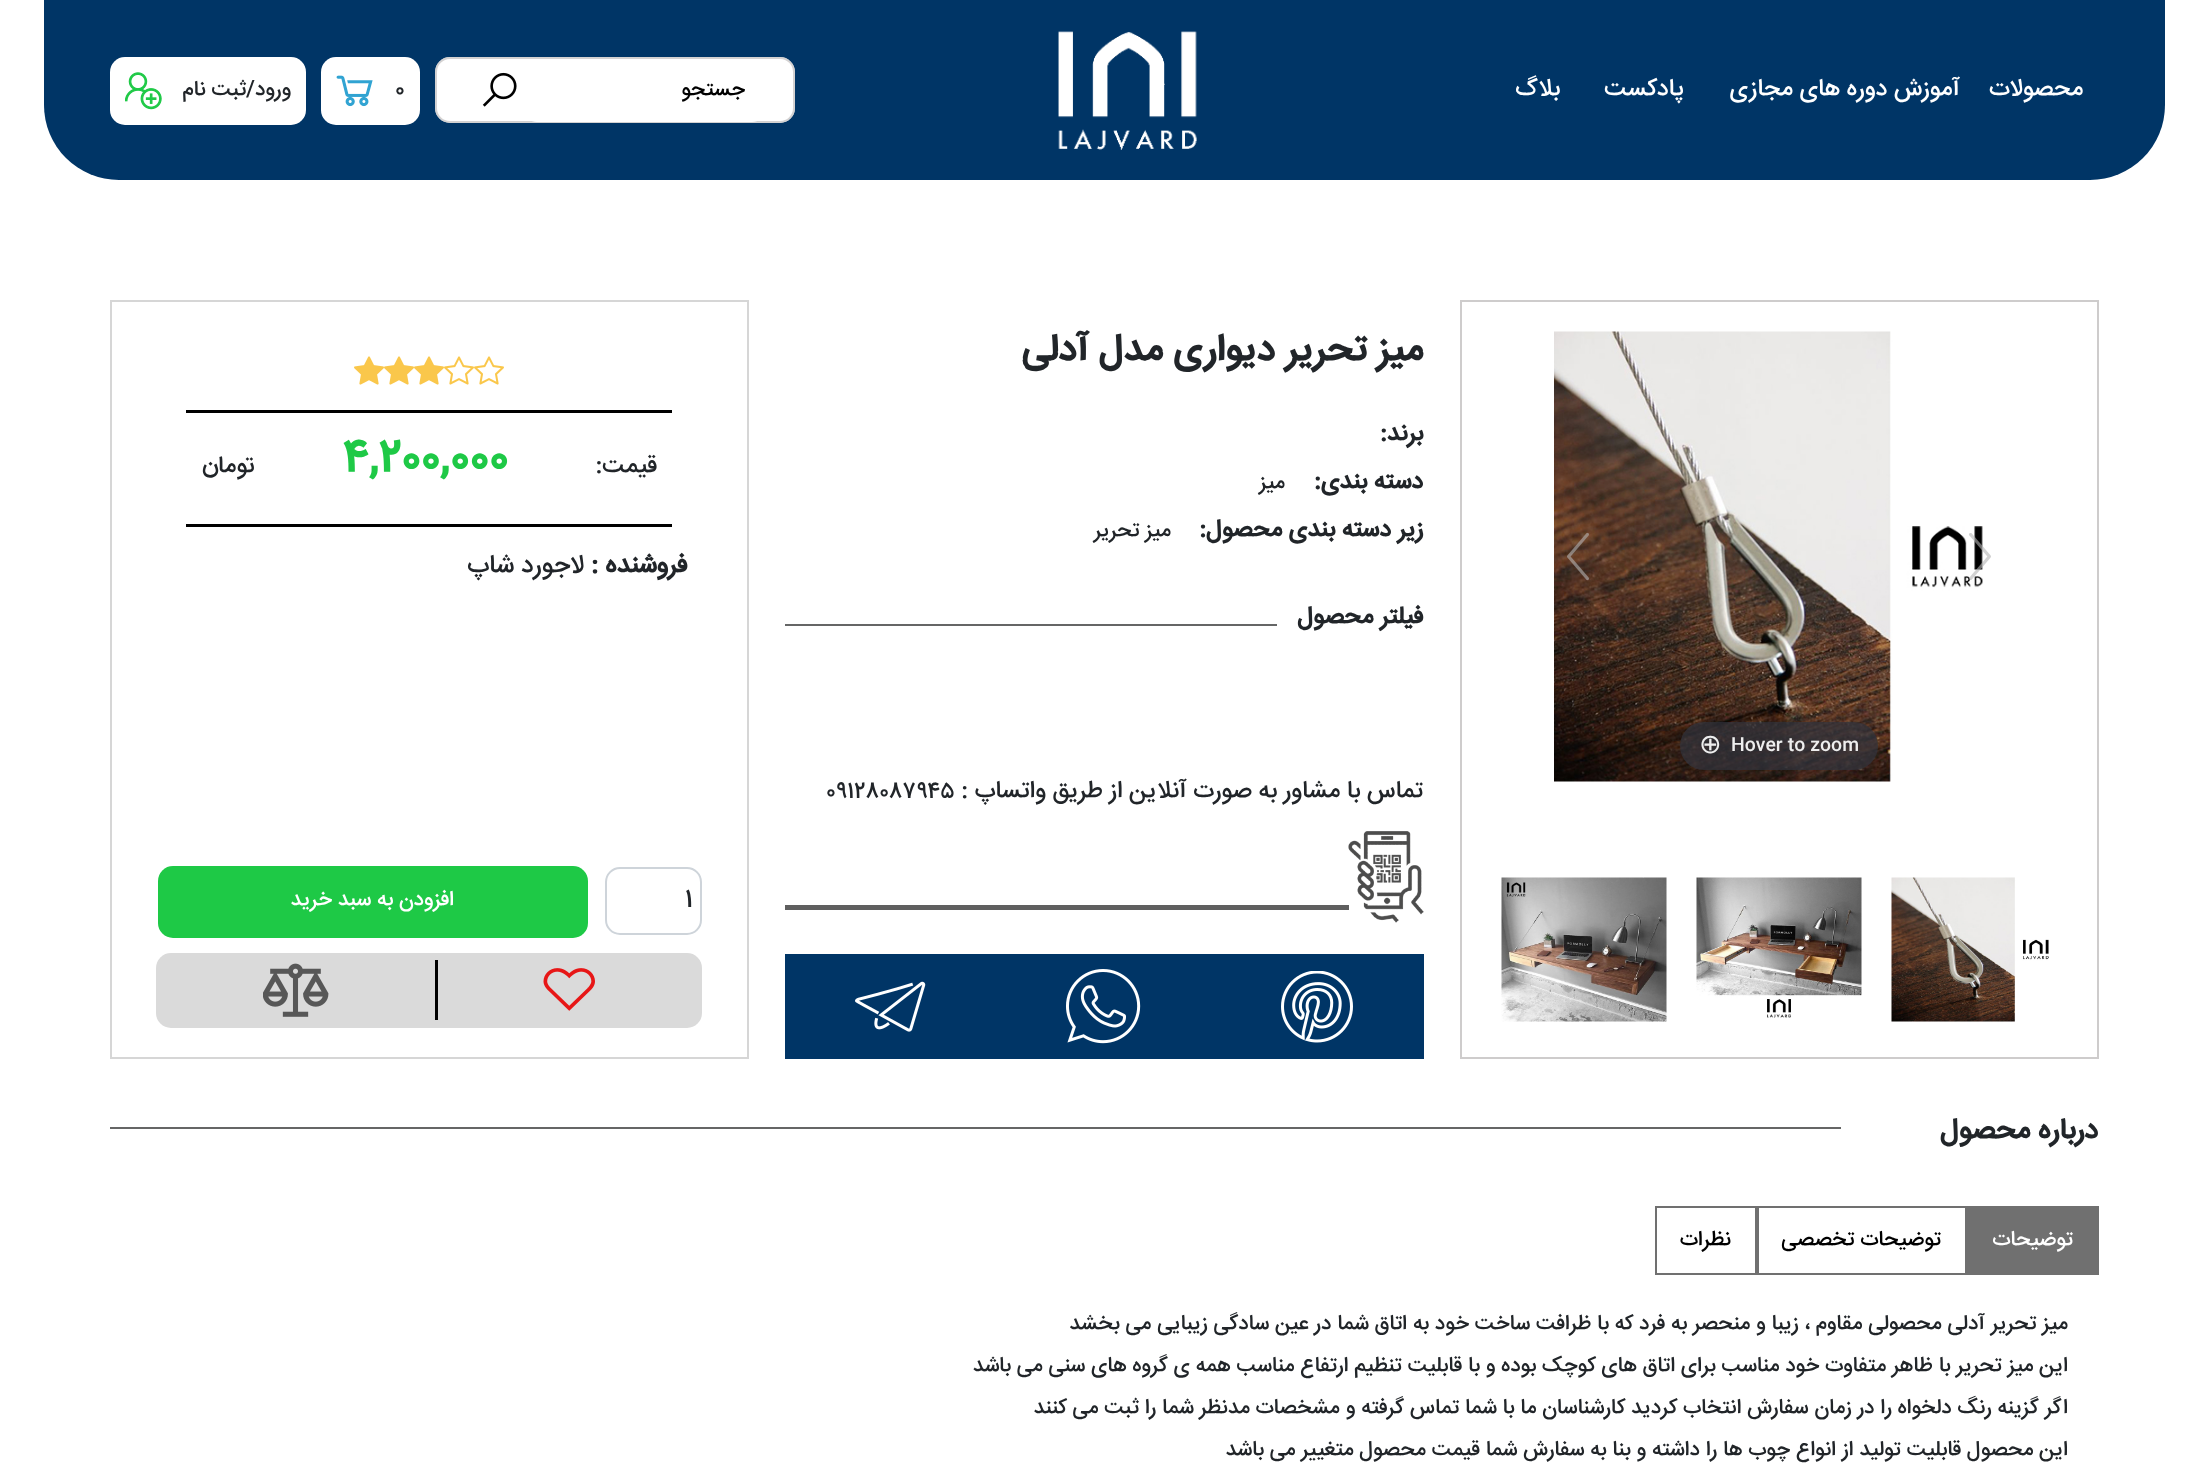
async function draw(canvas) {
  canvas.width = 2208
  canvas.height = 1470
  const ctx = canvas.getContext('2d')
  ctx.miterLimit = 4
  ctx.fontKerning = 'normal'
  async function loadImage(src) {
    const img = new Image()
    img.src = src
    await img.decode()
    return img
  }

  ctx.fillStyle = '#fff'
  ctx.fillRect(0, 0, 2208, 1470)
  ctx.fillStyle = '#003566'
  ctx.beginPath()
  ctx.roundRect(44, 0, 2121, 180, [0, 0, 75, 75])
  ctx.fill()
  ctx.direction = 'rtl'
  ctx.font = '500 24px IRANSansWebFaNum'
  ctx.fillStyle = '#fff'
  ctx.fillText('محصولات', 2083, 95)
  ctx.fillText('آموزش دوره های مجازی', 1960, 95)
  ctx.fillText('پادکست', 1684, 95)
  ctx.fillText('بلاگ', 1560, 95)
  ctx.drawImage(await loadImage('image0.png'), 1058, 31, 139, 119)
  ctx.beginPath()
  ctx.roundRect(435, 57, 360, 66, 15)
  ctx.fill()
  ctx.beginPath()
  ctx.roundRect(436, 58, 358, 64, 14)
  ctx.strokeStyle = '#c2bfbfb3'
  ctx.lineWidth = 2
  ctx.stroke()
  ctx.beginPath()
  ctx.roundRect(525, 59, 239, 63, 12)
  ctx.fill()
  ctx.font = '500 21px IRANSansWebFaNum'
  ctx.fillStyle = '#000'
  ctx.fillText('جستجو', 745, 95)
  ctx.drawImage(await loadImage('image1.png'), 482, 72, 35, 35)
  ctx.fillStyle = '#fff'
  ctx.beginPath()
  ctx.roundRect(321, 57, 99, 68, 15)
  ctx.fill()
  ctx.direction = 'ltr'
  ctx.fillStyle = '#212529'
  ctx.fillText('0', 395, 95)
  ctx.drawImage(await loadImage('image2.png'), 336, 75, 37, 32)
  ctx.fillStyle = '#fff'
  ctx.beginPath()
  ctx.roundRect(110, 57, 196, 68, 15)
  ctx.fill()
  ctx.direction = 'rtl'
  ctx.fillStyle = '#212529'
  ctx.fillText('ورود/ثبت نام', 291, 95)
  ctx.drawImage(await loadImage('image3.png'), 125, 72, 37, 38)
  ctx.strokeStyle = '#cecccc'
  ctx.strokeRect(1461, 301, 637, 757)
  ctx.drawImage(await loadImage('image4.png'), 1554, 331, 429, 451)
  ctx.drawImage(await loadImage('image5.png'), 1969, 533, 22, 47)
  ctx.drawImage(await loadImage('image6.png'), 1567, 532, 22, 49)
  ctx.fillStyle = '#31333db3'
  ctx.beginPath()
  ctx.roundRect(1680, 722, 198, 48, 24)
  ctx.fill()
  ctx.direction = 'ltr'
  ctx.font = '500 18px IRANSansWebFaNum'
  ctx.fillStyle = '#eee'
  ctx.fillText('Hover to zoom', 1731, 750)
  ctx.font = '27px DejaVu Sans'
  ctx.fillText('⊕', 1699, 753)
  ctx.drawImage(await loadImage('image7.png'), 1891, 877, 158, 145)
  ctx.drawImage(await loadImage('image8.png'), 1696, 877, 166, 141)
  ctx.drawImage(await loadImage('image9.png'), 1501, 877, 166, 145)
  ctx.direction = 'rtl'
  ctx.font = 'bold 37.5px IRANSansWebFaNum'
  ctx.fillStyle = '#212529'
  ctx.fillText('میز تحریر دیواری مدل آدلی', 1423, 360)
  ctx.font = 'bold 24px IRANSansWebFaNum'
  ctx.fillText('برند:', 1423, 440)
  ctx.fillText('دسته بندی:', 1423, 488)
  ctx.font = '500 21px IRANSansWebFaNum'
  ctx.fillText('میز', 1285, 488)
  ctx.font = 'bold 24px IRANSansWebFaNum'
  ctx.fillText('زیر دسته بندی محصول:', 1423, 536)
  ctx.font = '500 21px IRANSansWebFaNum'
  ctx.fillText('میز تحریر', 1171, 536)
  ctx.font = 'bold 24px IRANSansWebFaNum'
  ctx.fillText('فیلتر محصول', 1423, 623)
  ctx.fillStyle = '#656666'
  ctx.fillRect(785, 624, 492, 2)
  ctx.font = '500 24px IRANSansWebFaNum'
  ctx.fillStyle = '#212529'
  ctx.fillText('تماس با مشاور به صورت آنلاین از طریق واتساپ :', 1423, 797)
  ctx.direction = 'ltr'
  ctx.font = '500 21px IRANSansWebFaNum'
  ctx.fillText('09128087945', 826, 797)
  ctx.fillStyle = '#5f5f5f'
  ctx.fillRect(785, 905, 564, 5)
  ctx.drawImage(await loadImage('image10.png'), 1348, 831, 76, 92)
  ctx.fillStyle = '#003566'
  ctx.fillRect(785, 954, 639, 105)
  ctx.drawImage(await loadImage('image11.png'), 1281, 971, 72, 72)
  ctx.drawImage(await loadImage('image12.png'), 1066, 969, 75, 75)
  ctx.drawImage(await loadImage('image13.png'), 855, 981, 71, 51)
  ctx.strokeStyle = '#d6d6d6'
  ctx.strokeRect(111, 301, 637, 757)
  ctx.fillStyle = '#000'
  ctx.fillRect(186, 410, 486, 3)
  ctx.drawImage(await loadImage('image14.png'), 474, 356, 30, 29)
  ctx.drawImage(await loadImage('image14.png'), 444, 356, 30, 29)
  ctx.drawImage(await loadImage('image15.png'), 414, 356, 30, 29)
  ctx.drawImage(await loadImage('image15.png'), 384, 356, 30, 29)
  ctx.drawImage(await loadImage('image15.png'), 354, 356, 30, 29)
  ctx.fillRect(186, 524, 486, 3)
  ctx.direction = 'rtl'
  ctx.font = '500 24px IRANSansWebFaNum'
  ctx.fillStyle = '#212529'
  ctx.fillText('قیمت:', 657, 472)
  ctx.direction = 'ltr'
  ctx.font = 'bold 42px IRANSansWebFaNum'
  ctx.fillStyle = '#1ec946'
  ctx.fillText('4,200,000', 343, 470)
  ctx.direction = 'rtl'
  ctx.font = '500 24px IRANSansWebFaNum'
  ctx.fillStyle = '#212529'
  ctx.fillText('تومان', 255, 472)
  ctx.font = 'bold 25.5px IRANSansWebFaNum'
  ctx.fillText('فروشنده :', 687, 572)
  ctx.font = '500 25.5px IRANSansWebFaNum'
  ctx.fillText('لاجورد شاپ', 584, 572)
  ctx.beginPath()
  ctx.roundRect(606, 868, 95, 66, 14)
  ctx.strokeStyle = '#ced4da'
  ctx.stroke()
  ctx.direction = 'ltr'
  ctx.font = '500 24px IRANSansWebFaNum'
  ctx.fillText('1', 685, 906)
  ctx.fillStyle = '#1ec946'
  ctx.beginPath()
  ctx.roundRect(158, 866, 430, 72, 15)
  ctx.fill()
  ctx.direction = 'rtl'
  ctx.font = '500 21px IRANSansWebFaNum'
  ctx.fillStyle = '#fff'
  ctx.fillText('افزودن به سبد خرید', 454, 905)
  ctx.fillStyle = '#dadada'
  ctx.beginPath()
  ctx.roundRect(156, 953, 546, 75, 15)
  ctx.fill()
  ctx.drawImage(await loadImage('image16.png'), 543, 968, 52, 43)
  ctx.fillStyle = '#000'
  ctx.fillRect(435, 960, 3, 60)
  ctx.drawImage(await loadImage('image17.png'), 263, 963, 66, 54)
  ctx.font = 'bold 28.5px IRANSansWebFaNum'
  ctx.fillStyle = '#212529'
  ctx.fillText('درباره محصول', 2098, 1138)
  ctx.fillStyle = '#656666'
  ctx.fillRect(110, 1127, 1731, 2)
  ctx.fillStyle = '#707070'
  ctx.fillRect(1967, 1206, 132, 69)
  ctx.font = '500 21px IRANSansWebFaNum'
  ctx.fillStyle = '#fff'
  ctx.fillText('توضیحات', 2073, 1245)
  ctx.strokeStyle = '#707070'
  ctx.strokeRect(1758, 1207, 208, 67)
  ctx.fillStyle = '#000'
  ctx.fillText('توضیحات تخصصی', 1941, 1245)
  ctx.strokeRect(1656, 1207, 100, 67)
  ctx.fillText('نظرات', 1731, 1245)
  ctx.fillStyle = '#212529'
  ctx.fillText('میز تحریر آدلی محصولی مقاوم ، زیبا و منحصر به فرد که با ظرافت ساخت خود به اتاق شما در عین سادگی زیبایی می بخشد', 2068, 1329)
  ctx.fillText('این میز تحریر با ظاهر متفاوت خود مناسب برای اتاق های کوچک بوده و با قابلیت تنظیم ارتفاع مناسب همه ی گروه های سنی می باشد', 2068, 1371)
  ctx.fillText('اگر گزینه رنگ دلخواه را در زمان سفارش انتخاب کردید کارشناسان ما با شما تماس گرفته و مشخصات مدنظر شما را ثبت می کنند', 2068, 1413)
  ctx.fillText('این محصول قابلیت تولید از انواع چوب ها را داشته و بنا به سفارش شما قیمت محصول متغییر می باشد', 2068, 1455)
}

draw(document.querySelector('canvas'))
